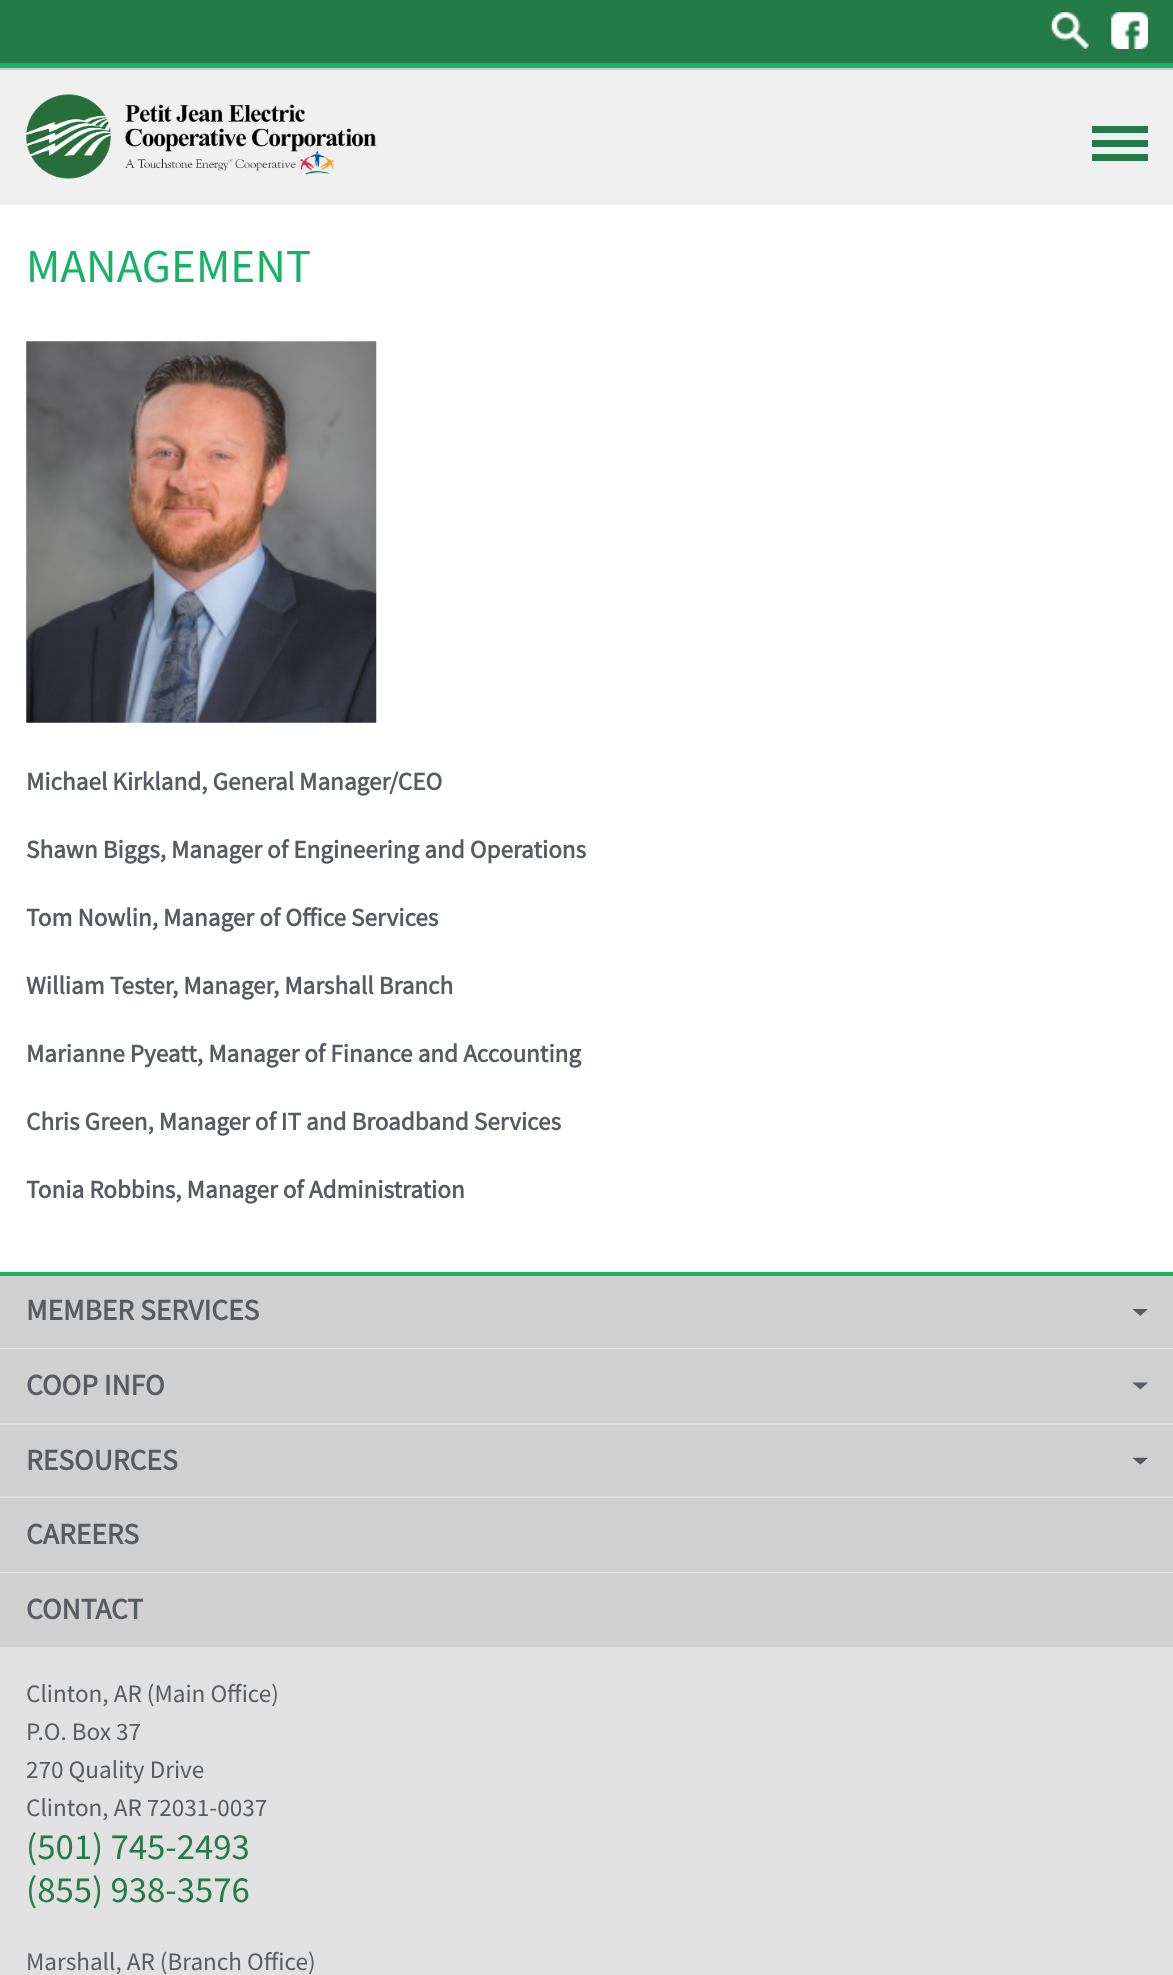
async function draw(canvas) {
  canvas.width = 1173
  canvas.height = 1975
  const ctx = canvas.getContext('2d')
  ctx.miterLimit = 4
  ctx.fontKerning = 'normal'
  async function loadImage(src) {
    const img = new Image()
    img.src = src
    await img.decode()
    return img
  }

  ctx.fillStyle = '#fff'
  ctx.fillRect(0, 0, 1173, 1975)
  ctx.fillStyle = '#f0f0f0'
  ctx.fillRect(0, 70, 1173, 135)
  ctx.fillStyle = '#257b47'
  ctx.fillRect(0, 0, 1173, 63)
  ctx.fillStyle = '#16b365'
  ctx.fillRect(0, 63, 1173, 5)
  ctx.drawImage(await loadImage('image0.png'), 1051, 12, 38, 37)
  ctx.drawImage(await loadImage('image1.png'), 1111, 12, 37, 37)
  ctx.fillStyle = '#ccc'
  ctx.fillRect(0, 68, 1173, 2)
  ctx.fillStyle = '#257b47'
  ctx.fillRect(1092, 126, 56, 7)
  ctx.fillRect(1092, 140, 56, 7)
  ctx.fillRect(1092, 154, 56, 7)
  ctx.drawImage(await loadImage('image2.png'), 26, 94, 351, 85)
  ctx.font = '47.25px Source Sans Pro'
  ctx.fillStyle = '#16b365'
  ctx.fillText('MANAGEMENT', 26, 282)
  ctx.drawImage(await loadImage('image3.png'), 26, 341, 351, 382)
  ctx.font = 'bold 25.2px Source Sans Pro'
  ctx.fillStyle = '#575c62'
  ctx.fillText('Michael Kirkland, General Manager/CEO', 26, 790)
  ctx.fillText('Shawn Biggs, Manager of Engineering and Operations', 26, 858)
  ctx.fillText('Tom Nowlin, Manager of Office Services', 26, 926)
  ctx.fillText('William Tester, Manager, Marshall Branch', 26, 994)
  ctx.fillText('Marianne Pyeatt, Manager of Finance and Accounting', 26, 1062)
  ctx.fillText('Chris Green, Manager of IT and Broadband Services', 26, 1130)
  ctx.fillText('Tonia Robbins, Manager of Administration', 26, 1198)
  ctx.fillStyle = '#e1e1e1'
  ctx.fillRect(0, 1348, 1173, 627)
  ctx.fillStyle = '#16b365'
  ctx.fillRect(0, 1272, 1173, 4)
  ctx.fillStyle = '#d0d0d0'
  ctx.fillRect(0, 1276, 1173, 72)
  ctx.font = 'bold 29.5px Source Sans Pro'
  ctx.fillStyle = '#575c62'
  ctx.fillText('MEMBER SERVICES', 26, 1320)
  ctx.drawImage(await loadImage('image4.png'), 1132, 1309, 16, 7)
  ctx.fillStyle = '#d0d0d0'
  ctx.fillRect(0, 1349, 1173, 74)
  ctx.fillStyle = '#575c62'
  ctx.fillText('COOP INFO', 26, 1395)
  ctx.drawImage(await loadImage('image5.png'), 1132, 1382, 16, 8)
  ctx.fillStyle = '#d0d0d0'
  ctx.fillRect(0, 1425, 1173, 71)
  ctx.fillStyle = '#575c62'
  ctx.fillText('RESOURCES', 26, 1470)
  ctx.drawImage(await loadImage('image6.png'), 1132, 1457, 16, 8)
  ctx.fillStyle = '#d0d0d0'
  ctx.fillRect(0, 1498, 1173, 74)
  ctx.fillStyle = '#575c62'
  ctx.fillText('CAREERS', 26, 1544)
  ctx.fillStyle = '#d0d0d0'
  ctx.fillRect(0, 1573, 1173, 74)
  ctx.fillStyle = '#575c62'
  ctx.fillText('CONTACT', 26, 1619)
  ctx.font = '25.2px Source Sans Pro'
  ctx.fillText('Clinton, AR (Main Office)', 26, 1702)
  ctx.fillText('P.O. Box 37', 26, 1740)
  ctx.fillText('270 Quality Drive', 26, 1778)
  ctx.fillText('Clinton, AR 72031-0037', 26, 1816)
  ctx.font = '36.75px Source Sans Pro'
  ctx.fillStyle = '#257b47'
  ctx.fillText('(501) 745-2493', 26, 1859)
  ctx.fillText('(855) 938-3576', 26, 1902)
  ctx.font = '25.2px Source Sans Pro'
  ctx.fillStyle = '#575c62'
  ctx.fillText('Marshall, AR (Branch Office)', 26, 1970)
}

draw(document.querySelector('canvas'))
